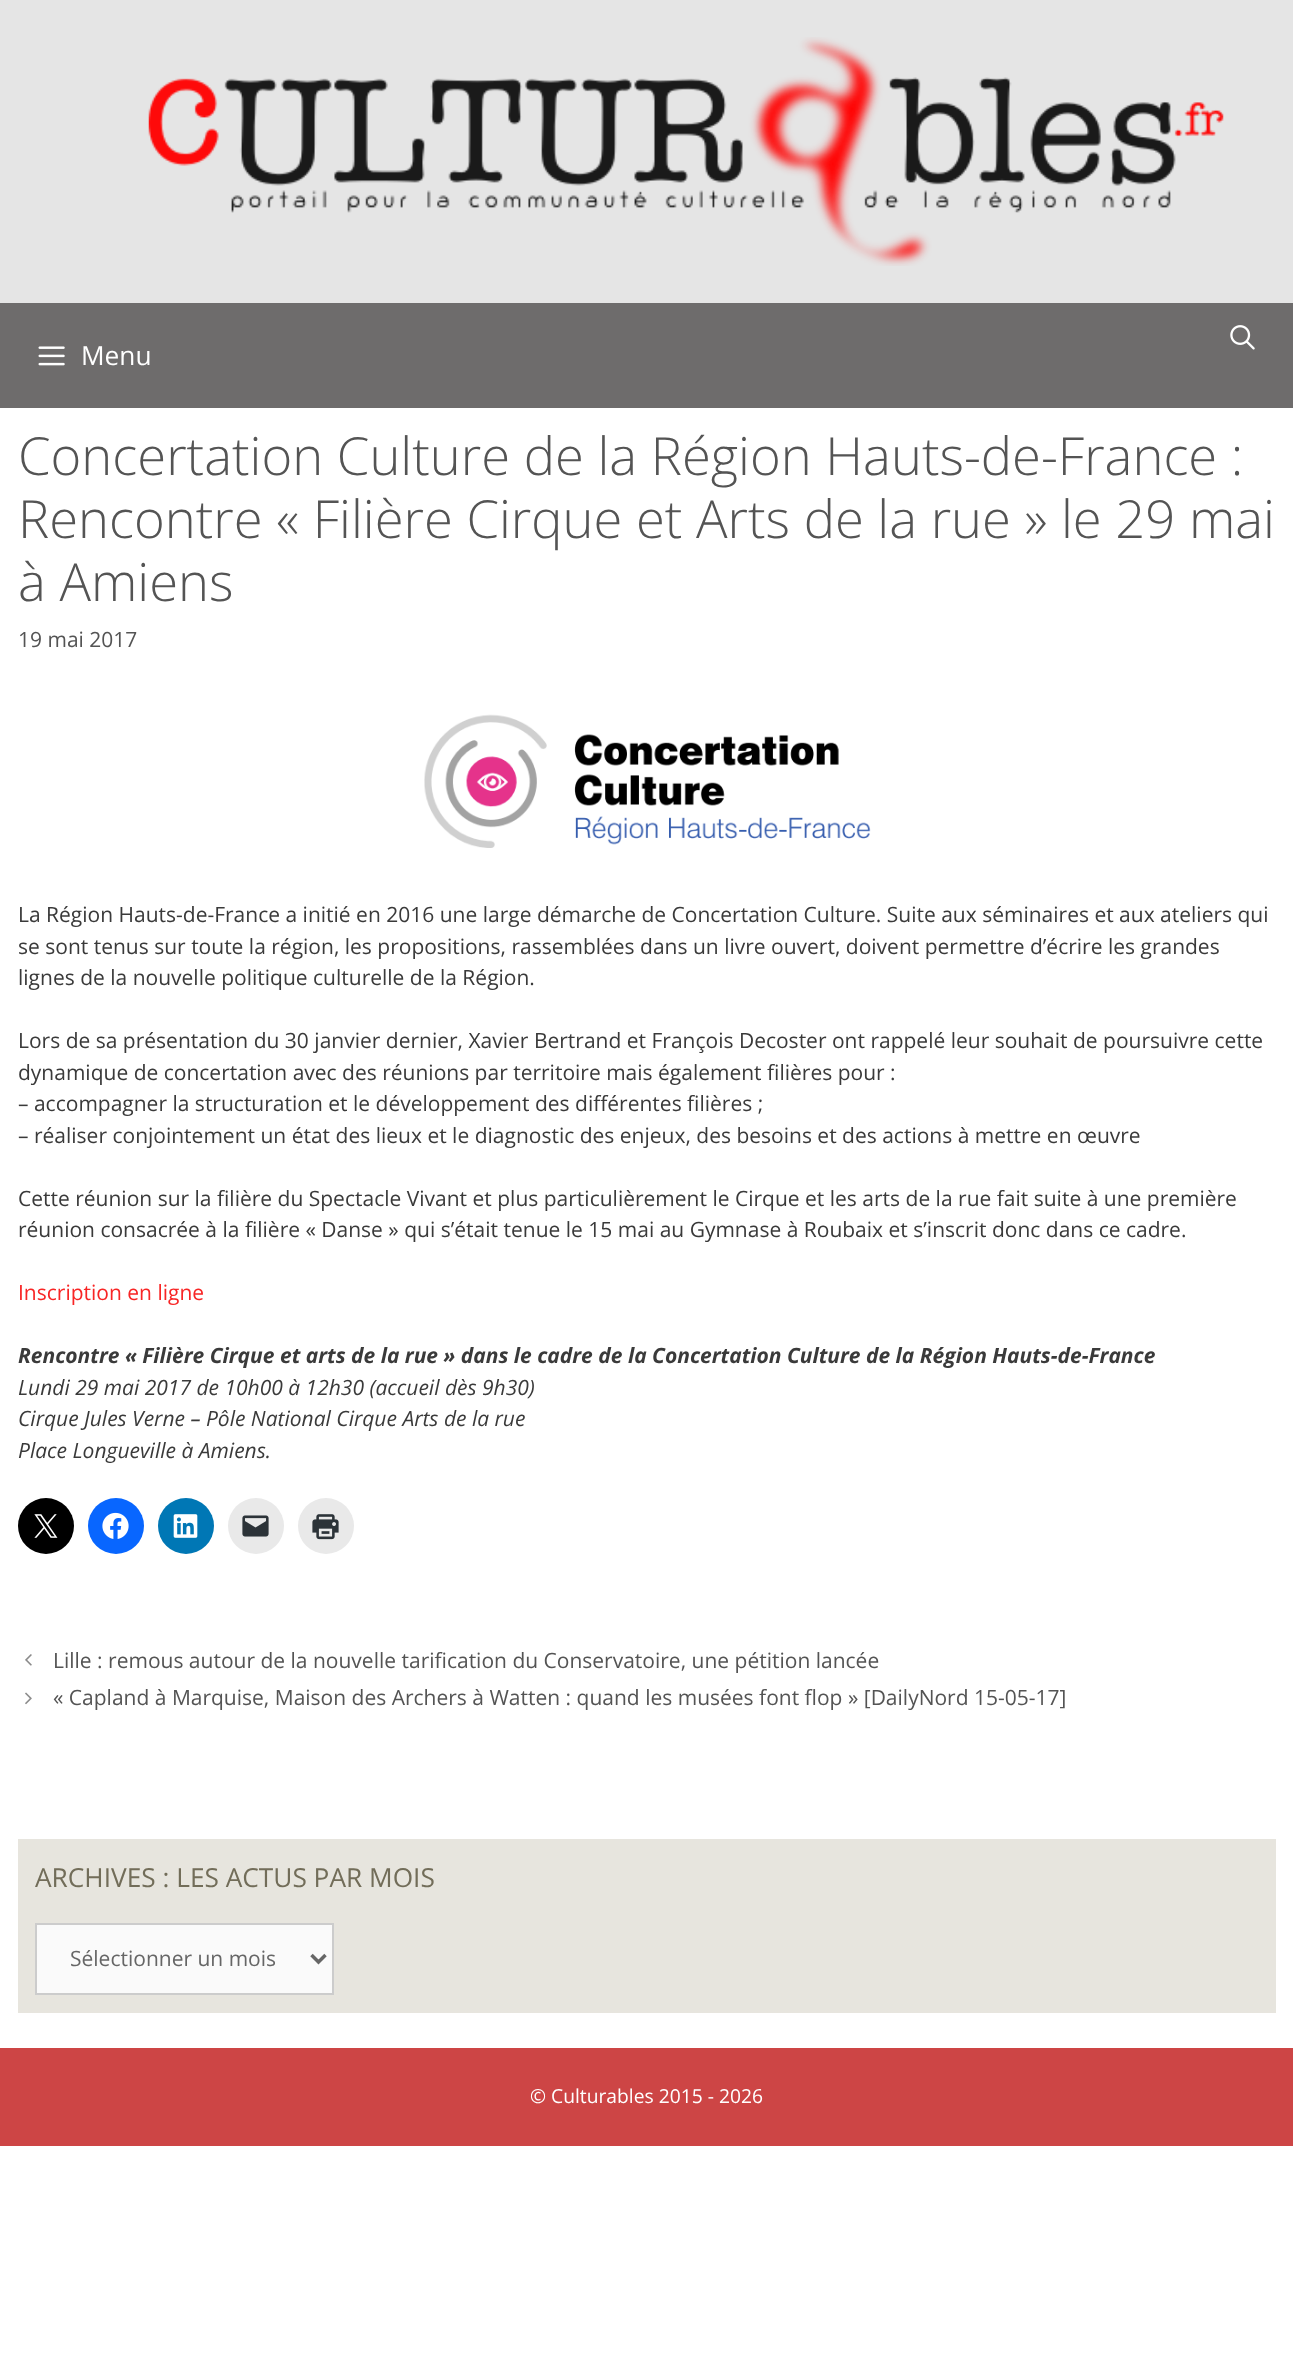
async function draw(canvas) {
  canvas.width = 1293
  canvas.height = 2360
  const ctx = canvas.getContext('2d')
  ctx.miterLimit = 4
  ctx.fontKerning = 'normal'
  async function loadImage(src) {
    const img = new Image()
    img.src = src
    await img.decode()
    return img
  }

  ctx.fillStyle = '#fff'
  ctx.fillRect(0, 0, 1293, 2360)
  ctx.fillStyle = '#e5e5e5'
  ctx.fillRect(0, 0, 1293, 303)
  ctx.drawImage(await loadImage('image0.png'), 148, 37, 1076, 229)
  ctx.fillStyle = '#6e6c6c'
  ctx.fillRect(0, 303, 1293, 105)
  ctx.drawImage(await loadImage('image1.png'), 1230, 325, 25, 25)
  ctx.drawImage(await loadImage('image2.png'), 38, 346, 27, 20)
  ctx.font = '26.25px Open Sans'
  ctx.fillStyle = '#fff'
  ctx.fillText('Menu', 81, 365)
  ctx.font = '300 52.5px Open Sans'
  ctx.fillStyle = '#545454'
  ctx.fillText('Concertation Culture de la Région Hauts-de-France :', 18, 475)
  ctx.fillText('Rencontre « Filière Cirque et Arts de la rue » le 29 mai', 18, 538)
  ctx.fillText('à Amiens', 18, 601)
  ctx.font = '21px Open Sans'
  ctx.fillText('19 mai 2017', 18, 647)
  ctx.drawImage(await loadImage('image3.png'), 424, 714, 447, 134)
  ctx.fillStyle = '#3a3a3a'
  ctx.fillText('La Région Hauts-de-France a initié en 2016 une large démarche de Concertation Culture. Suite aux séminaires et aux ateliers qui', 18, 922)
  ctx.fillText('se sont tenus sur toute la région, les propositions, rassemblées dans un livre ouvert, doivent permettre d’écrire les grandes', 18, 954)
  ctx.fillText('lignes de la nouvelle politique culturelle de la Région.', 18, 985)
  ctx.fillText('Lors de sa présentation du 30 janvier dernier, Xavier Bertrand et François Decoster ont rappelé leur souhait de poursuivre cette', 18, 1048)
  ctx.fillText('dynamique de concertation avec des réunions par territoire mais également filières pour :', 18, 1080)
  ctx.fillText('– accompagner la structuration et le développement des différentes filières ;', 18, 1111)
  ctx.fillText('– réaliser conjointement un état des lieux et le diagnostic des enjeux, des besoins et des actions à mettre en œuvre', 18, 1143)
  ctx.fillText('Cette réunion sur la filière du Spectacle Vivant et plus particulièrement le Cirque et les arts de la rue fait suite à une première', 18, 1206)
  ctx.fillText('réunion consacrée à la filière « Danse » qui s’était tenue le 15 mai au Gymnase à Roubaix et s’inscrit donc dans ce cadre.', 18, 1237)
  ctx.fillStyle = '#f82525'
  ctx.fillText('Inscription en ligne', 18, 1300)
  ctx.font = 'italic bold 21px Open Sans'
  ctx.fillStyle = '#3a3a3a'
  ctx.fillText('Rencontre « Filière Cirque et arts de la rue » dans le cadre de la Concertation Culture de la Région Hauts-de-France', 18, 1363)
  ctx.font = 'italic 21px Open Sans'
  ctx.fillText('Lundi 29 mai 2017 de 10h00 à 12h30 (accueil dès 9h30)', 18, 1395)
  ctx.fillText('Cirque Jules Verne – Pôle National Cirque Arts de la rue', 18, 1426)
  ctx.fillText('Place Longueville à Amiens.', 18, 1458)
  ctx.fillStyle = '#000'
  ctx.beginPath()
  ctx.arc(46, 1526, 28, 0, 2 * Math.PI)
  ctx.fill()
  ctx.drawImage(await loadImage('image4.png'), 34, 1514, 24, 24)
  ctx.fillStyle = '#0866ff'
  ctx.beginPath()
  ctx.arc(116, 1526, 28, 0, 2 * Math.PI)
  ctx.fill()
  ctx.drawImage(await loadImage('image5.png'), 102, 1512, 27, 27)
  ctx.fillStyle = '#0077b5'
  ctx.beginPath()
  ctx.arc(186, 1526, 28, 0, 2 * Math.PI)
  ctx.fill()
  ctx.drawImage(await loadImage('image6.png'), 173, 1514, 25, 24)
  ctx.fillStyle = '#e9e9e9'
  ctx.beginPath()
  ctx.arc(256, 1526, 28, 0, 2 * Math.PI)
  ctx.fill()
  ctx.drawImage(await loadImage('image7.png'), 242, 1515, 27, 22)
  ctx.beginPath()
  ctx.arc(326, 1526, 28, 0, 2 * Math.PI)
  ctx.fill()
  ctx.drawImage(await loadImage('image8.png'), 312, 1514, 27, 26)
  ctx.drawImage(await loadImage('image9.png'), 25, 1654, 7, 12)
  ctx.font = '21px Open Sans'
  ctx.fillStyle = '#545454'
  ctx.fillText('Lille : remous autour de la nouvelle tarification du Conservatoire, une pétition lancée', 53, 1668)
  ctx.drawImage(await loadImage('image10.png'), 25, 1692, 7, 13)
  ctx.fillText('« Capland à Marquise, Maison des Archers à Watten : quand les musées font flop » [DailyNord 15-05-17]', 53, 1705)
  ctx.fillStyle = '#e7e5de'
  ctx.fillRect(18, 1839, 1258, 174)
  ctx.font = '26.25px Open Sans'
  ctx.fillStyle = '#726d59'
  ctx.fillText('ARCHIVES : LES ACTUS PAR MOIS', 35, 1887)
  ctx.fillStyle = '#fafafa'
  ctx.beginPath()
  ctx.rect(36, 1924, 297, 70)
  ctx.fill()
  ctx.strokeStyle = '#ccc'
  ctx.lineWidth = 2
  ctx.stroke()
  ctx.beginPath()
  ctx.moveTo(311.5, 1955)
  ctx.lineTo(318.5, 1962)
  ctx.lineTo(325.5, 1955)
  ctx.strokeStyle = '#666'
  ctx.lineWidth = 3.5
  ctx.stroke()
  ctx.font = '21px Open Sans'
  ctx.fillStyle = '#666'
  ctx.fillText('Sélectionner un mois', 70, 1966)
  ctx.fillStyle = '#cd4545'
  ctx.fillRect(0, 2048, 1293, 98)
  ctx.font = '19.25px Open Sans'
  ctx.fillStyle = '#fff'
  ctx.fillText('© Culturables 2015 - 2026', 530, 2103)
}

draw(document.querySelector('canvas'))
